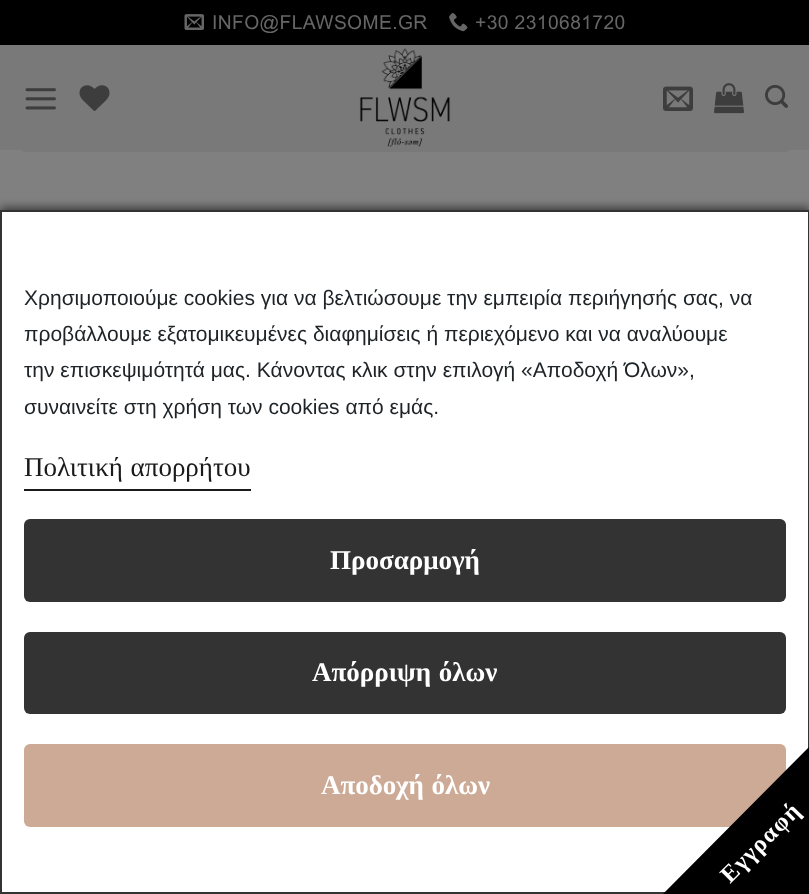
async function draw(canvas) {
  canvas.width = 809
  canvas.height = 894
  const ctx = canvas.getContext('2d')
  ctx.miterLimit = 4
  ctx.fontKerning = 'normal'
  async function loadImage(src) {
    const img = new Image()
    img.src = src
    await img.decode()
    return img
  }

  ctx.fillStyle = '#808080'
  ctx.fillRect(0, 0, 809, 894)
  ctx.fillStyle = '#000'
  ctx.fillRect(0, 0, 809, 45)
  ctx.drawImage(await loadImage('image0.png'), 184, 14, 20, 16)
  ctx.letterSpacing = '0.4px'
  ctx.font = '19.25px Arial'
  ctx.fillStyle = '#666'
  ctx.fillText('INFO@FLAWSOME.GR', 212, 29)
  ctx.drawImage(await loadImage('image1.png'), 449, 13, 19, 19)
  ctx.fillText('+30 2310681720', 475, 29)
  ctx.fillStyle = '#797979'
  ctx.fillRect(0, 45, 809, 105)
  ctx.drawImage(await loadImage('image2.png'), 25, 88, 31, 22)
  ctx.drawImage(await loadImage('image3.png'), 79, 85, 31, 26)
  ctx.drawImage(await loadImage('image4.png'), 359, 48, 92, 99)
  ctx.drawImage(await loadImage('image5.png'), 663, 86, 30, 25)
  ctx.drawImage(await loadImage('image6.png'), 714, 83, 30, 31)
  ctx.drawImage(await loadImage('image7.png'), 765, 84, 23, 24)
  ctx.fillRect(23, 150, 765, 2)
  ctx.fillStyle = '#00000080'
  ctx.filter = 'blur(4px)'
  ctx.beginPath()
  ctx.rect(0, 207, 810, 684)
  ctx.fill()
  ctx.filter = 'none'
  ctx.fillStyle = '#fff'
  ctx.beginPath()
  ctx.rect(1, 211, 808, 682)
  ctx.fill()
  ctx.strokeStyle = '#333'
  ctx.lineWidth = 2
  ctx.stroke()
  ctx.letterSpacing = '0px'
  ctx.font = '21px Liberation Sans'
  ctx.fillStyle = '#1d2327'
  ctx.fillText('Χρησιμοποιούμε cookies για να βελτιώσουμε την εμπειρία περιήγησής σας, να', 24, 305)
  ctx.fillText('προβάλλουμε εξατομικευμένες διαφημίσεις ή περιεχόμενο και να αναλύουμε', 24, 341)
  ctx.fillText('την επισκεψιμότητά μας. Κάνοντας κλικ στην επιλογή «Αποδοχή Όλων»,', 24, 377)
  ctx.fillText('συναινείτε στη χρήση των cookies από εμάς.', 24, 414)
  ctx.wordSpacing = '1px'
  ctx.font = '27px Liberation Serif'
  ctx.fillStyle = '#1a1a1a'
  ctx.fillText('Πολιτική απορρήτου', 24, 476)
  ctx.fillRect(24, 489, 227, 2)
  ctx.fillStyle = '#333'
  ctx.beginPath()
  ctx.roundRect(24, 519, 762, 83, 6)
  ctx.fill()
  ctx.wordSpacing = '0px'
  ctx.font = 'bold 27px Liberation Serif'
  ctx.fillStyle = '#fff'
  ctx.fillText('Προσαρμογή', 330, 569)
  ctx.fillStyle = '#333'
  ctx.beginPath()
  ctx.roundRect(24, 632, 762, 82, 6)
  ctx.fill()
  ctx.wordSpacing = '1px'
  ctx.fillStyle = '#fff'
  ctx.fillText('Απόρριψη όλων', 312, 681)
  ctx.fillStyle = '#ccaa95'
  ctx.beginPath()
  ctx.roundRect(24, 744, 762, 83, 6)
  ctx.fill()
  ctx.fillStyle = '#fff'
  ctx.fillText('Αποδοχή όλων', 321, 794)
  ctx.fillStyle = '#000'
  ctx.beginPath()
  ctx.moveTo(658, 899)
  ctx.lineTo(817, 739)
  ctx.bezierCurveTo(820, 737, 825, 737, 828, 739)
  ctx.lineTo(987, 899)
  ctx.bezierCurveTo(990, 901, 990, 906, 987, 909)
  ctx.lineTo(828, 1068)
  ctx.bezierCurveTo(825, 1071, 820, 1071, 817, 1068)
  ctx.lineTo(658, 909)
  ctx.bezierCurveTo(655, 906, 655, 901, 658, 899)
  ctx.closePath()
  ctx.fill()
  ctx.letterSpacing = '1.25px'
  ctx.wordSpacing = '0px'
  ctx.font = 'bold 24px Liberation Serif'
  ctx.fillStyle = '#fff'
  ctx.save()
  ctx.translate(730, 884)
  ctx.rotate(-45 * Math.PI / 180)
  ctx.fillText('Εγγραφή', 0, 0)
  ctx.restore()
}

draw(document.querySelector('canvas'))
